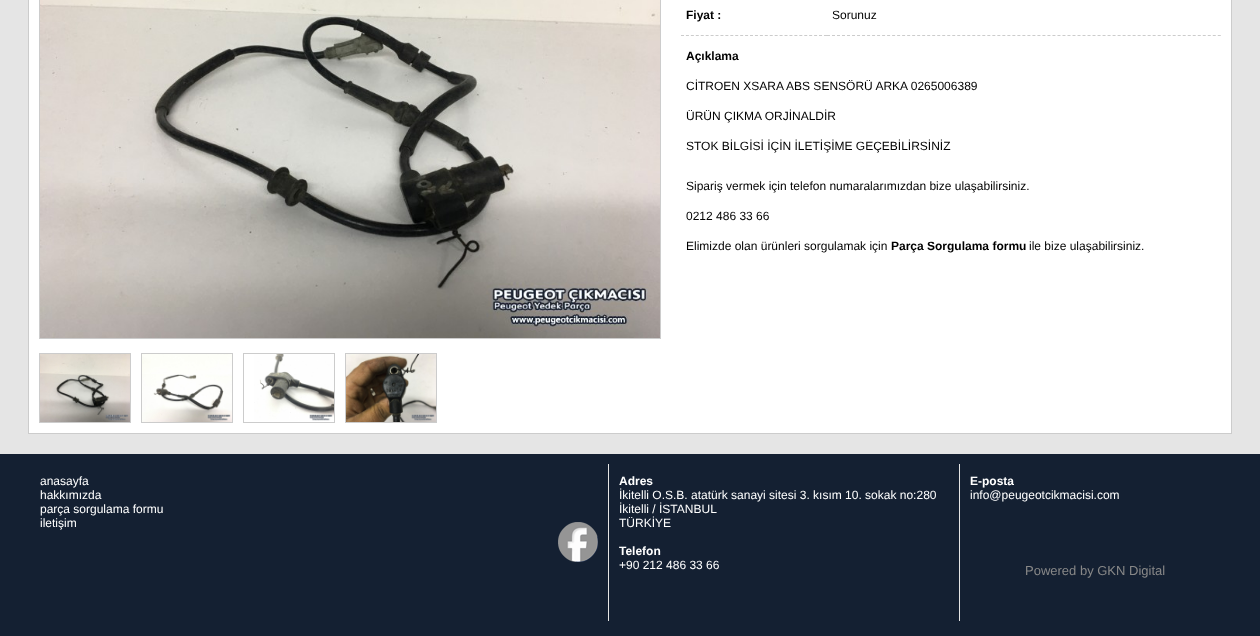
async function draw(canvas) {
  canvas.width = 1260
  canvas.height = 636
  const ctx = canvas.getContext('2d')
  ctx.miterLimit = 4
  ctx.fontKerning = 'normal'
  async function loadImage(src) {
    const img = new Image()
    img.src = src
    await img.decode()
    return img
  }

  ctx.fillStyle = '#e5e5e5'
  ctx.fillRect(0, 0, 1260, 636)
  ctx.strokeStyle = '#ccc'
  ctx.strokeRect(28.5, -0.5, 1203, 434)
  ctx.fillStyle = '#fff'
  ctx.fillRect(29, 0, 1202, 433)
  ctx.strokeRect(39.5, -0.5, 621, 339)
  ctx.drawImage(await loadImage('image0.png'), 40, 0, 620, 338)
  ctx.strokeRect(39.5, 353.5, 91, 69)
  ctx.strokeRect(141.5, 353.5, 91, 69)
  ctx.strokeRect(243.5, 353.5, 91, 69)
  ctx.strokeRect(345.5, 353.5, 91, 69)
  ctx.drawImage(await loadImage('image1.png'), 40, 354, 90, 68)
  ctx.drawImage(await loadImage('image2.png'), 142, 354, 90, 68)
  ctx.drawImage(await loadImage('image3.png'), 254, 354, 80, 67)
  ctx.drawImage(await loadImage('image4.png'), 346, 354, 90, 68)
  ctx.beginPath()
  ctx.moveTo(681, 35.5)
  ctx.lineTo(827, 35.5)
  ctx.setLineDash([3, 1.93])
  ctx.stroke()
  ctx.font = 'bold 12px Liberation Sans'
  ctx.fillStyle = '#000'
  ctx.fillText('Fiyat :', 686, 19)
  ctx.beginPath()
  ctx.moveTo(827, 35.5)
  ctx.lineTo(1221, 35.5)
  ctx.setLineDash([3, 2.01])
  ctx.stroke()
  ctx.font = '12px Liberation Sans'
  ctx.fillText('Sorunuz', 832, 19)
  ctx.font = 'bold 12px Liberation Sans'
  ctx.fillText('Açıklama', 686, 60)
  ctx.font = '12px Liberation Sans'
  ctx.fillText('CİTROEN XSARA ABS SENSÖRÜ ARKA 0265006389', 686, 90)
  ctx.fillText('ÜRÜN ÇIKMA ORJİNALDİR', 686, 120)
  ctx.fillText('STOK BİLGİSİ İÇİN İLETİŞİME GEÇEBİLİRSİNİZ', 686, 150)
  ctx.fillText('Sipariş vermek için telefon numaralarımızdan bize ulaşabilirsiniz.', 686, 190)
  ctx.fillText('0212 486 33 66', 686, 220)
  ctx.fillText('Elimizde olan ürünleri sorgulamak için', 686, 250)
  ctx.font = 'bold 12px Liberation Sans'
  ctx.fillText('Parça Sorgulama formu', 891, 250)
  ctx.font = '12px Liberation Sans'
  ctx.fillText('ile bize ulaşabilirsiniz.', 1029, 250)
  ctx.fillStyle = '#142032'
  ctx.fillRect(0, 454, 1260, 182)
  ctx.fillStyle = '#fff'
  ctx.fillText('anasayfa', 40, 485)
  ctx.fillText('hakkımızda', 40, 499)
  ctx.fillText('parça sorgulama formu', 40, 513)
  ctx.fillText('iletişim', 40, 527)
  ctx.drawImage(await loadImage('image5.png'), 558, 522, 40, 40)
  ctx.fillStyle = '#e5e5e5'
  ctx.fillRect(959, 464, 1, 157)
  ctx.fillRect(608, 464, 1, 157)
  ctx.font = 'bold 12px Liberation Sans'
  ctx.fillStyle = '#fff'
  ctx.fillText('Adres', 619, 485)
  ctx.font = '12px Liberation Sans'
  ctx.fillText('İkitelli O.S.B. atatürk sanayi sitesi 3. kısım 10. sokak no:280', 619, 499)
  ctx.fillText('İkitelli / İSTANBUL', 619, 513)
  ctx.fillText('TÜRKİYE', 619, 527)
  ctx.font = 'bold 12px Liberation Sans'
  ctx.fillText('Telefon', 619, 555)
  ctx.font = '12px Liberation Sans'
  ctx.fillText('+90 212 486 33 66', 619, 569)
  ctx.font = 'bold 12px Liberation Sans'
  ctx.fillText('E-posta', 970, 485)
  ctx.font = '12px Liberation Sans'
  ctx.fillText('info@peugeotcikmacisi.com', 970, 499)
  ctx.font = '13px Liberation Sans'
  ctx.fillStyle = '#888'
  ctx.fillText('Powered by GKN Digital', 1025, 575)
}

draw(document.querySelector('canvas'))
